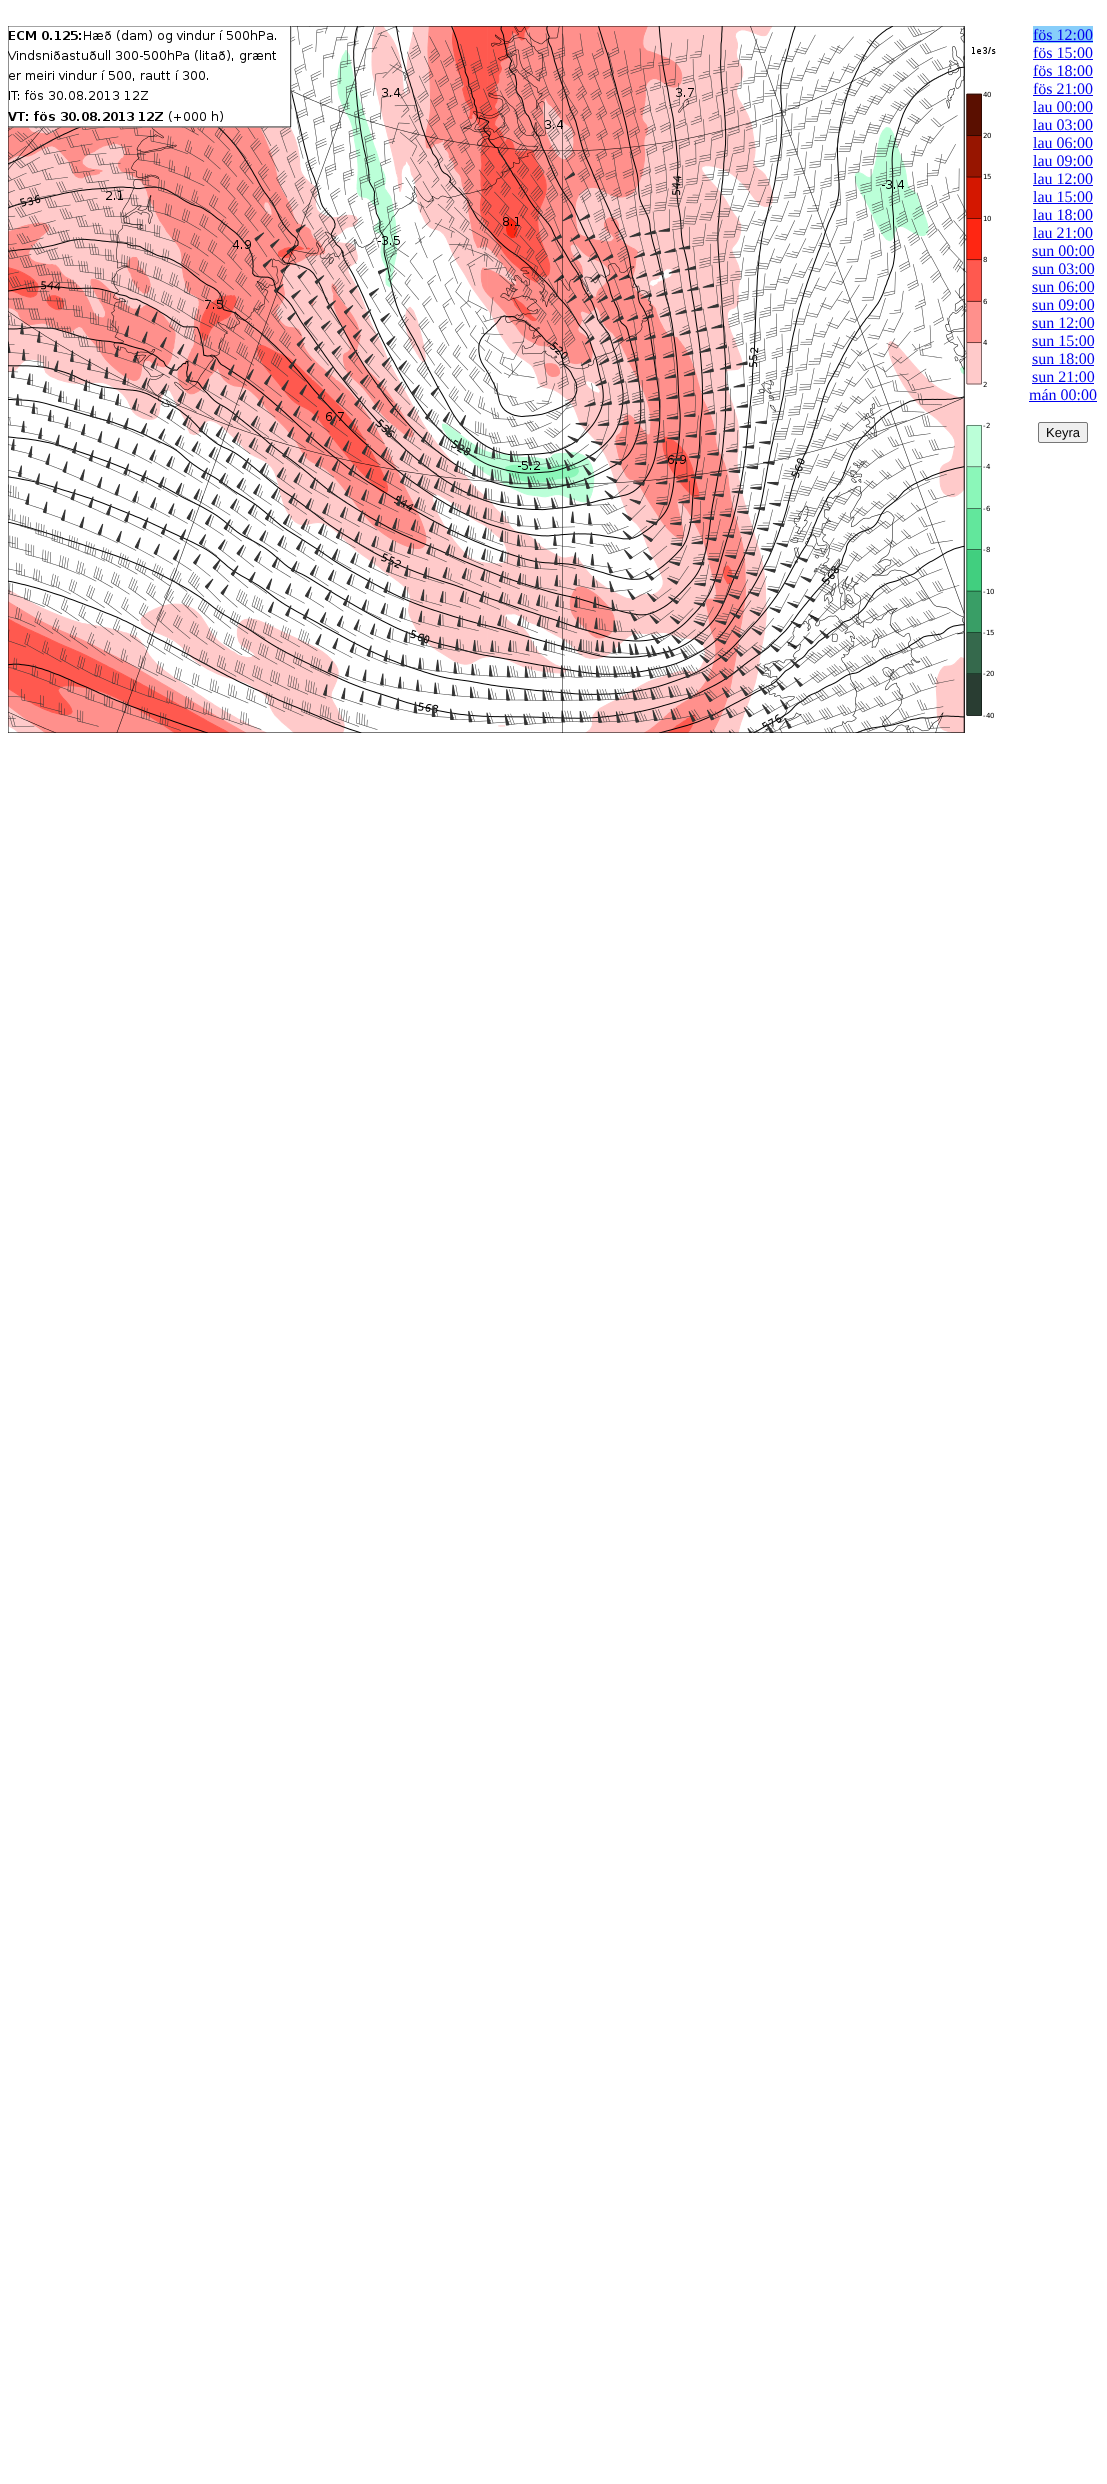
async function draw(canvas) {
  canvas.width = 1107
  canvas.height = 2484
  const ctx = canvas.getContext('2d')
  ctx.miterLimit = 4
  ctx.fontKerning = 'normal'
  async function loadImage(src) {
    const img = new Image()
    img.src = src
    await img.decode()
    return img
  }

  ctx.fillStyle = '#fff'
  ctx.fillRect(0, 0, 1107, 2484)
  ctx.drawImage(await loadImage('image0.png'), 8, 26, 988, 707)
  ctx.fillStyle = '#87cefa'
  ctx.fillRect(1033, 26, 60, 17)
  ctx.font = '16px Liberation Serif'
  ctx.fillStyle = '#00e'
  ctx.fillText('fös 12:00', 1033, 40)
  ctx.fillRect(1033, 41, 60, 1)
  ctx.fillText('fös 15:00', 1033, 58)
  ctx.fillRect(1033, 59, 60, 1)
  ctx.fillText('fös 18:00', 1033, 76)
  ctx.fillRect(1033, 77, 60, 1)
  ctx.fillText('fös 21:00', 1033, 94)
  ctx.fillRect(1033, 95, 60, 1)
  ctx.fillText('lau 00:00', 1033, 112)
  ctx.fillRect(1033, 113, 60, 1)
  ctx.fillText('lau 03:00', 1033, 130)
  ctx.fillRect(1033, 131, 60, 1)
  ctx.fillText('lau 06:00', 1033, 148)
  ctx.fillRect(1033, 149, 60, 1)
  ctx.fillText('lau 09:00', 1033, 166)
  ctx.fillRect(1033, 167, 60, 1)
  ctx.fillText('lau 12:00', 1033, 184)
  ctx.fillRect(1033, 185, 60, 1)
  ctx.fillText('lau 15:00', 1033, 202)
  ctx.fillRect(1033, 203, 60, 1)
  ctx.fillText('lau 18:00', 1033, 220)
  ctx.fillRect(1033, 221, 60, 1)
  ctx.fillText('lau 21:00', 1033, 238)
  ctx.fillRect(1033, 239, 60, 1)
  ctx.fillText('sun 00:00', 1032, 256)
  ctx.fillRect(1032, 257, 62, 1)
  ctx.fillText('sun 03:00', 1032, 274)
  ctx.fillRect(1032, 275, 62, 1)
  ctx.fillText('sun 06:00', 1032, 292)
  ctx.fillRect(1032, 293, 62, 1)
  ctx.fillText('sun 09:00', 1032, 310)
  ctx.fillRect(1032, 311, 62, 1)
  ctx.fillText('sun 12:00', 1032, 328)
  ctx.fillRect(1032, 329, 62, 1)
  ctx.fillText('sun 15:00', 1032, 346)
  ctx.fillRect(1032, 347, 62, 1)
  ctx.fillText('sun 18:00', 1032, 364)
  ctx.fillRect(1032, 365, 62, 1)
  ctx.fillText('sun 21:00', 1032, 382)
  ctx.fillRect(1032, 383, 62, 1)
  ctx.fillText('mán 00:00', 1029, 400)
  ctx.fillRect(1029, 401, 68, 1)
  ctx.fillStyle = '#efefef'
  ctx.beginPath()
  ctx.roundRect(1038.5, 422.5, 49, 20, 1.5)
  ctx.fill()
  ctx.strokeStyle = '#767676'
  ctx.stroke()
  ctx.font = '13px Liberation Sans'
  ctx.fillStyle = '#000'
  ctx.fillText('Keyra', 1046, 437)
}

draw(document.querySelector('canvas'))
